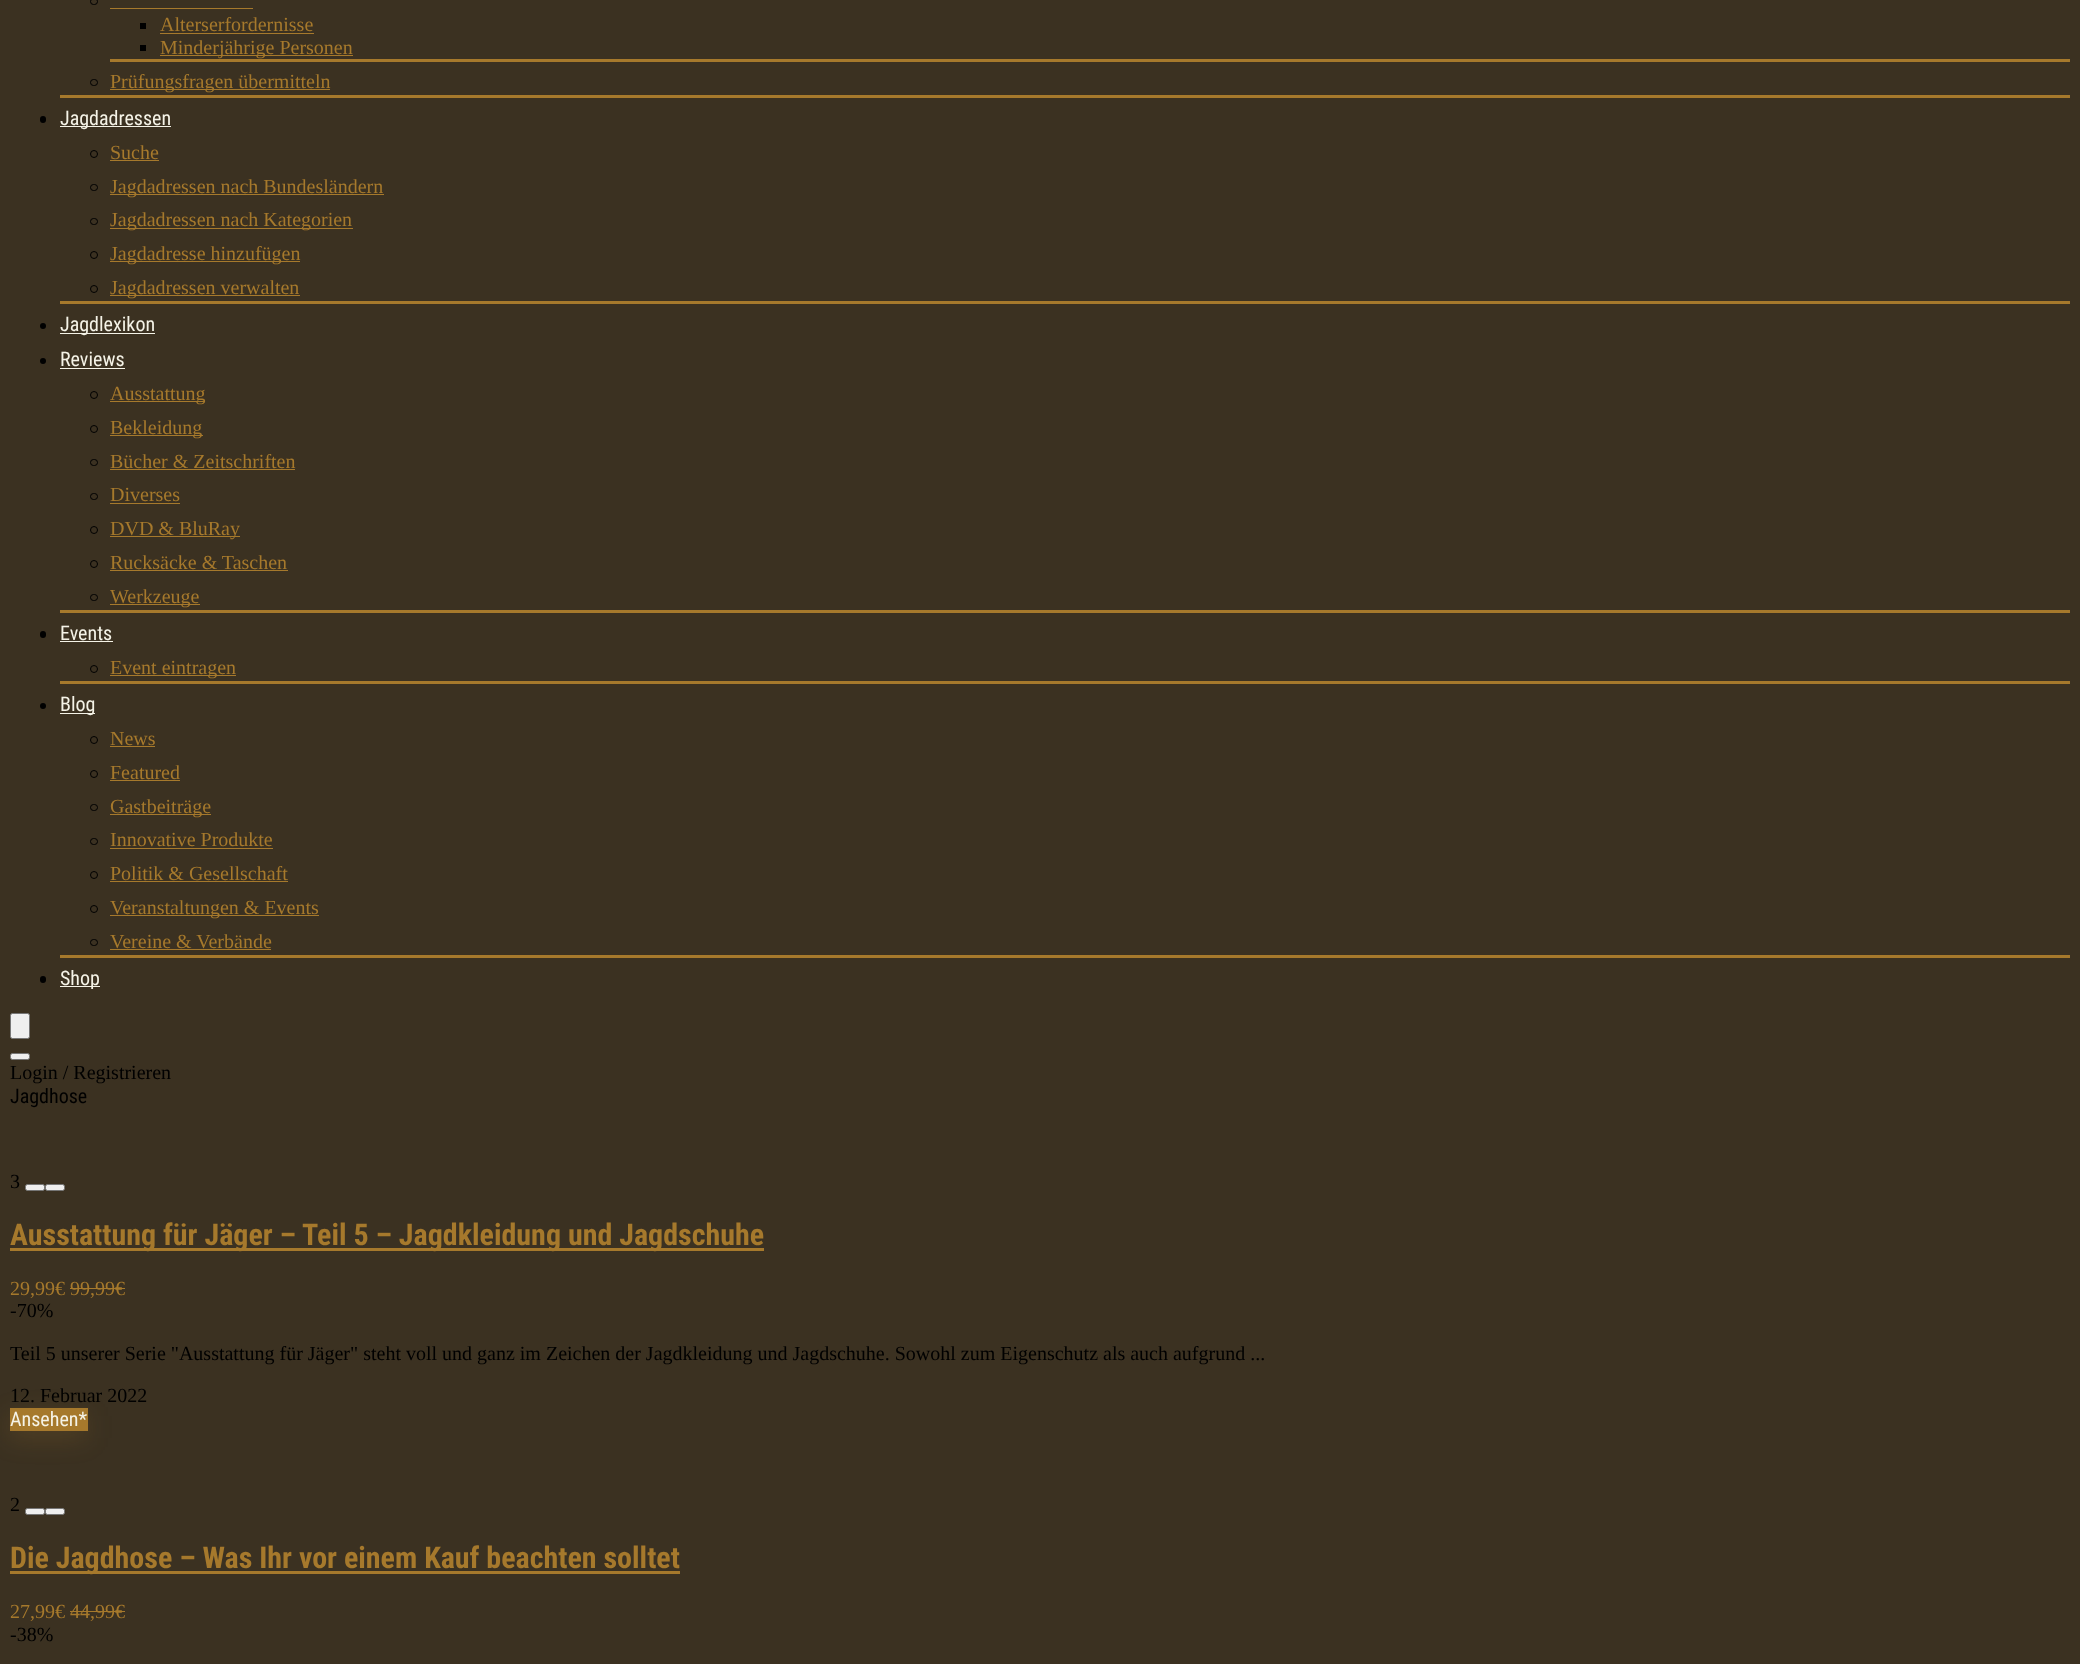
async function draw(canvas) {
  canvas.width = 2080
  canvas.height = 1664
  const ctx = canvas.getContext('2d')
  ctx.miterLimit = 4
  ctx.fontKerning = 'normal'

  ctx.fillStyle = '#3b3121'
  ctx.fillRect(0, 0, 2080, 1664)
  ctx.fillStyle = '#a6792c'
  ctx.fillRect(60, 95, 2010, 3)
  ctx.beginPath()
  ctx.roundRect(90.5, -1.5, 7, 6, 3)
  ctx.strokeStyle = '#000'
  ctx.stroke()
  ctx.fillRect(110, 8, 143, 1)
  ctx.fillRect(110, 59, 1960, 3)
  ctx.fillStyle = '#000'
  ctx.fillRect(140, 23, 6, 6)
  ctx.font = '20px Liberation Serif'
  ctx.fillStyle = '#a6792c'
  ctx.fillText('Alterserfordernisse', 160, 31)
  ctx.fillRect(160, 33, 154, 1)
  ctx.fillStyle = '#000'
  ctx.fillRect(140, 45, 6, 6)
  ctx.fillStyle = '#a6792c'
  ctx.fillRect(160, 55, 193, 1)
  ctx.fillText('Minderjährige Personen', 160, 54)
  ctx.beginPath()
  ctx.roundRect(90.5, 79.5, 7, 6, 3)
  ctx.stroke()
  ctx.fillRect(110, 89, 220, 1)
  ctx.fillText('Prüfungsfragen übermitteln', 110, 88)
  ctx.fillStyle = '#000'
  ctx.beginPath()
  ctx.roundRect(40, 116, 6, 7, 3)
  ctx.fill()
  ctx.fillStyle = '#f5f3e7'
  ctx.fillRect(60, 126, 111, 1)
  ctx.font = '20px Roboto Condensed'
  ctx.fillText('Jagdadressen', 60, 125)
  ctx.fillStyle = '#a6792c'
  ctx.fillRect(60, 301, 2010, 3)
  ctx.beginPath()
  ctx.arc(94, 154, 3.5, 0, 2 * Math.PI)
  ctx.stroke()
  ctx.font = '20px Liberation Serif'
  ctx.fillText('Suche', 110, 159)
  ctx.fillRect(110, 160, 49, 1)
  ctx.beginPath()
  ctx.roundRect(90.5, 184.5, 7, 6, 3)
  ctx.stroke()
  ctx.fillRect(110, 194, 274, 1)
  ctx.fillText('Jagdadressen nach Bundesländern', 110, 193)
  ctx.beginPath()
  ctx.roundRect(90.5, 218.5, 7, 6, 3)
  ctx.stroke()
  ctx.fillRect(110, 228, 243, 1)
  ctx.fillText('Jagdadressen nach Kategorien', 110, 226)
  ctx.beginPath()
  ctx.arc(94, 255, 3.5, 0, 2 * Math.PI)
  ctx.stroke()
  ctx.fillRect(110, 261, 190, 1)
  ctx.fillText('Jagdadresse hinzufügen', 110, 260)
  ctx.beginPath()
  ctx.arc(94, 289, 3.5, 0, 2 * Math.PI)
  ctx.stroke()
  ctx.fillRect(110, 295, 190, 1)
  ctx.fillText('Jagdadressen verwalten', 110, 294)
  ctx.fillStyle = '#000'
  ctx.beginPath()
  ctx.arc(43, 326, 3, 0, 2 * Math.PI)
  ctx.fill()
  ctx.fillStyle = '#f5f3e7'
  ctx.fillRect(60, 333, 95, 1)
  ctx.font = '20px Roboto Condensed'
  ctx.fillText('Jagdlexikon', 60, 331)
  ctx.fillStyle = '#000'
  ctx.beginPath()
  ctx.arc(43, 361, 3, 0, 2 * Math.PI)
  ctx.fill()
  ctx.fillStyle = '#f5f3e7'
  ctx.fillText('Reviews', 60, 366)
  ctx.fillRect(60, 368, 65, 1)
  ctx.fillStyle = '#a6792c'
  ctx.fillRect(60, 610, 2010, 3)
  ctx.beginPath()
  ctx.arc(94, 395, 3.5, 0, 2 * Math.PI)
  ctx.stroke()
  ctx.fillRect(110, 401, 95, 1)
  ctx.font = '20px Liberation Serif'
  ctx.fillText('Ausstattung', 110, 400)
  ctx.beginPath()
  ctx.arc(94, 429, 3.5, 0, 2 * Math.PI)
  ctx.stroke()
  ctx.fillRect(110, 435, 93, 1)
  ctx.fillText('Bekleidung', 110, 434)
  ctx.beginPath()
  ctx.roundRect(90.5, 459.5, 7, 6, 3)
  ctx.stroke()
  ctx.fillText('Bücher & Zeitschriften', 110, 468)
  ctx.fillRect(110, 469, 185, 1)
  ctx.beginPath()
  ctx.roundRect(90.5, 493.5, 7, 6, 3)
  ctx.stroke()
  ctx.fillText('Diverses', 110, 501)
  ctx.fillRect(110, 503, 70, 1)
  ctx.beginPath()
  ctx.arc(94, 530, 3.5, 0, 2 * Math.PI)
  ctx.stroke()
  ctx.fillRect(110, 536, 130, 1)
  ctx.fillText('DVD & BluRay', 110, 535)
  ctx.beginPath()
  ctx.arc(94, 564, 3.5, 0, 2 * Math.PI)
  ctx.stroke()
  ctx.fillText('Rucksäcke & Taschen', 110, 569)
  ctx.fillRect(110, 570, 178, 1)
  ctx.beginPath()
  ctx.roundRect(90.5, 594.5, 7, 6, 3)
  ctx.stroke()
  ctx.fillRect(110, 604, 90, 1)
  ctx.fillText('Werkzeuge', 110, 603)
  ctx.fillStyle = '#000'
  ctx.beginPath()
  ctx.roundRect(40, 631, 6, 7, 3)
  ctx.fill()
  ctx.font = '20px Roboto Condensed'
  ctx.fillStyle = '#f5f3e7'
  ctx.fillText('Events', 60, 640)
  ctx.fillRect(60, 641, 53, 1)
  ctx.fillStyle = '#a6792c'
  ctx.fillRect(60, 681, 2010, 3)
  ctx.beginPath()
  ctx.arc(94, 669, 3.5, 0, 2 * Math.PI)
  ctx.stroke()
  ctx.fillRect(110, 675, 126, 1)
  ctx.font = '20px Liberation Serif'
  ctx.fillText('Event eintragen', 110, 674)
  ctx.fillStyle = '#000'
  ctx.beginPath()
  ctx.arc(43, 706, 3, 0, 2 * Math.PI)
  ctx.fill()
  ctx.fillStyle = '#f5f3e7'
  ctx.fillRect(60, 713, 35, 1)
  ctx.font = '20px Roboto Condensed'
  ctx.fillText('Blog', 60, 711)
  ctx.fillStyle = '#a6792c'
  ctx.fillRect(60, 955, 2010, 3)
  ctx.beginPath()
  ctx.arc(94, 740, 3.5, 0, 2 * Math.PI)
  ctx.stroke()
  ctx.font = '20px Liberation Serif'
  ctx.fillText('News', 110, 745)
  ctx.fillRect(110, 746, 45, 1)
  ctx.beginPath()
  ctx.arc(94, 774, 3.5, 0, 2 * Math.PI)
  ctx.stroke()
  ctx.fillText('Featured', 110, 779)
  ctx.fillRect(110, 780, 70, 1)
  ctx.beginPath()
  ctx.roundRect(90.5, 804.5, 7, 6, 3)
  ctx.stroke()
  ctx.fillRect(110, 814, 101, 1)
  ctx.fillText('Gastbeiträge', 110, 813)
  ctx.beginPath()
  ctx.roundRect(90.5, 838.5, 7, 6, 3)
  ctx.stroke()
  ctx.fillText('Innovative Produkte', 110, 846)
  ctx.fillRect(110, 848, 163, 1)
  ctx.beginPath()
  ctx.arc(94, 875, 3.5, 0, 2 * Math.PI)
  ctx.stroke()
  ctx.fillText('Politik & Gesellschaft', 110, 880)
  ctx.fillRect(110, 881, 178, 1)
  ctx.beginPath()
  ctx.arc(94, 909, 3.5, 0, 2 * Math.PI)
  ctx.stroke()
  ctx.fillRect(110, 915, 209, 1)
  ctx.fillText('Veranstaltungen & Events', 110, 914)
  ctx.beginPath()
  ctx.roundRect(90.5, 939.5, 7, 6, 3)
  ctx.stroke()
  ctx.fillText('Vereine & Verbände', 110, 948)
  ctx.fillRect(110, 949, 161, 1)
  ctx.fillStyle = '#000'
  ctx.beginPath()
  ctx.roundRect(40, 976, 6, 7, 3)
  ctx.fill()
  ctx.fillStyle = '#f5f3e7'
  ctx.fillRect(60, 986, 40, 1)
  ctx.font = '20px Roboto Condensed'
  ctx.fillText('Shop', 60, 985)
  ctx.fillStyle = '#efefef'
  ctx.beginPath()
  ctx.roundRect(10.5, 1013.5, 19, 25, 2)
  ctx.fill()
  ctx.strokeStyle = '#767676'
  ctx.stroke()
  ctx.beginPath()
  ctx.roundRect(10.5, 1053.5, 19, 6, 2)
  ctx.fill()
  ctx.stroke()
  ctx.font = '20px Liberation Serif'
  ctx.fillStyle = '#000'
  ctx.fillText('Login / Registrieren', 10, 1079)
  ctx.font = '20px Roboto Condensed'
  ctx.fillText('Jagdhose', 10, 1103)
  ctx.font = '20px Liberation Serif'
  ctx.fillText('3', 10, 1188)
  ctx.fillStyle = '#efefef'
  ctx.beginPath()
  ctx.roundRect(25.5, 1184.5, 19, 6, 2)
  ctx.fill()
  ctx.stroke()
  ctx.beginPath()
  ctx.roundRect(45.5, 1184.5, 19, 6, 2)
  ctx.fill()
  ctx.stroke()
  ctx.fillStyle = '#a6792c'
  ctx.fillRect(10, 1248, 754, 3)
  ctx.font = 'bold 30px Roboto Condensed'
  ctx.fillText('Ausstattung für Jäger – Teil 5 – Jagdkleidung und Jagdschuhe', 10, 1245)
  ctx.font = '20px Liberation Serif'
  ctx.fillText('29,99€ 99,99€', 10, 1295)
  ctx.fillRect(70, 1288, 55, 1)
  ctx.fillStyle = '#000'
  ctx.fillText('-70%', 10, 1317)
  ctx.fillText('Teil 5 unserer Serie "Ausstattung für Jäger" steht voll und ganz im Zeichen der Jagdkleidung und Jagdschuhe. Sowohl zum Eigenschutz als auch aufgrund ...', 10, 1360)
  ctx.fillText('12. Februar 2022', 10, 1402)
  ctx.fillStyle = '#a6792c33'
  ctx.filter = 'blur(12px)'
  ctx.beginPath()
  ctx.rect(9, 1415, 77, 24)
  ctx.fill()
  ctx.filter = 'none'
  ctx.fillStyle = '#a6792c'
  ctx.fillRect(10, 1408, 78, 23)
  ctx.font = '20px Roboto Condensed'
  ctx.fillStyle = '#f5f3e7'
  ctx.fillText('Ansehen*', 10, 1426)
  ctx.font = '20px Liberation Serif'
  ctx.fillStyle = '#000'
  ctx.fillText('2', 10, 1511)
  ctx.fillStyle = '#efefef'
  ctx.beginPath()
  ctx.roundRect(25.5, 1508.5, 19, 6, 2)
  ctx.fill()
  ctx.stroke()
  ctx.beginPath()
  ctx.roundRect(45.5, 1508.5, 19, 6, 2)
  ctx.fill()
  ctx.stroke()
  ctx.fillStyle = '#a6792c'
  ctx.fillRect(10, 1571, 670, 3)
  ctx.font = 'bold 30px Roboto Condensed'
  ctx.fillText('Die Jagdhose – Was Ihr vor einem Kauf beachten solltet', 10, 1568)
  ctx.font = '20px Liberation Serif'
  ctx.fillText('27,99€ 44,99€', 10, 1618)
  ctx.fillRect(70, 1611, 55, 1)
  ctx.fillStyle = '#000'
  ctx.fillText('-38%', 10, 1641)
}

draw(document.querySelector('canvas'))
